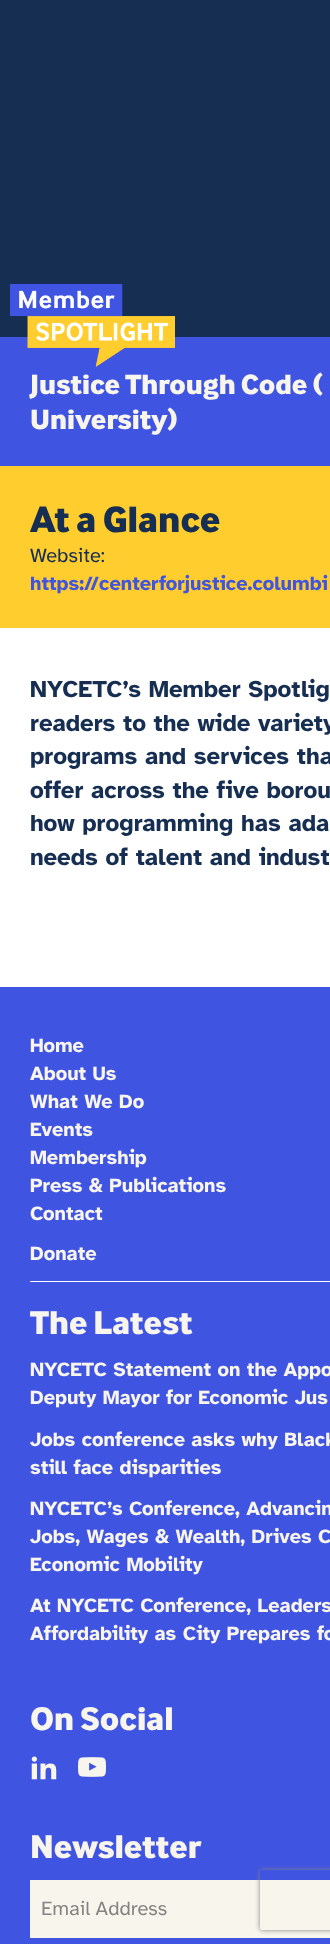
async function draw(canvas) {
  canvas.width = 330
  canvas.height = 1944
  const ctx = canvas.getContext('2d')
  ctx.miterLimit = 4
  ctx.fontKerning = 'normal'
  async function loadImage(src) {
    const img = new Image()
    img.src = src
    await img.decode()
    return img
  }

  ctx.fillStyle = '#fff'
  ctx.fillRect(0, 0, 330, 1944)
  ctx.fillStyle = '#152e51'
  ctx.fillRect(0, 0, 330, 337)
  ctx.fillStyle = '#4054e2'
  ctx.fillRect(0, 337, 330, 129)
  ctx.drawImage(await loadImage('image0.png'), 10, 283, 165, 84)
  ctx.font = 'bold 28.9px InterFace'
  ctx.fillStyle = '#f8f5ec'
  ctx.fillText('Justice Through Code (', 30, 394)
  ctx.fillText('University)', 30, 429)
  ctx.fillStyle = '#ffcd2e'
  ctx.fillRect(0, 466, 330, 162)
  ctx.font = 'bold 38px InterFace'
  ctx.fillStyle = '#152e51'
  ctx.fillText('At a Glance', 30, 532)
  ctx.font = '20px Atkinson Hyperlegible'
  ctx.fillText('Website:', 30, 562)
  ctx.font = 'bold 20px Atkinson Hyperlegible'
  ctx.fillStyle = '#4054e2'
  ctx.fillText('https://centerforjustice.columbi', 30, 590)
  ctx.font = 'bold 24px Atkinson Hyperlegible'
  ctx.fillStyle = '#152e51'
  ctx.fillText('NYCETC’s Member Spotlig', 30, 697)
  ctx.fillText('readers to the wide variety', 30, 731)
  ctx.fillText('programs and services tha', 30, 764)
  ctx.fillText('offer across the five borou', 30, 798)
  ctx.fillText('how programming has ada', 30, 831)
  ctx.fillText('needs of talent and indust', 30, 865)
  ctx.fillStyle = '#4054e2'
  ctx.fillRect(0, 987, 330, 957)
  ctx.fillStyle = '#fff'
  ctx.fillRect(30, 1281, 300, 1)
  ctx.font = 'bold 20px Atkinson Hyperlegible'
  ctx.fillStyle = '#f8f5ec'
  ctx.fillText('Home', 30, 1052)
  ctx.fillText('About Us', 30, 1080)
  ctx.fillText('What We Do', 30, 1108)
  ctx.fillText('Events', 30, 1136)
  ctx.fillText('Membership', 30, 1164)
  ctx.fillText('Press & Publications', 30, 1192)
  ctx.fillText('Contact', 30, 1220)
  ctx.fillText('Donate', 30, 1260)
  ctx.font = 'bold 34px InterFace'
  ctx.fillText('The Latest', 30, 1334)
  ctx.font = 'bold 20px Atkinson Hyperlegible'
  ctx.fillText('NYCETC Statement on the Appo', 30, 1376)
  ctx.fillText('Deputy Mayor for Economic Jus', 30, 1404)
  ctx.fillText('Jobs conference asks why Black', 30, 1446)
  ctx.fillText('still face disparities', 30, 1474)
  ctx.fillText('NYCETC’s Conference, Advancin', 30, 1515)
  ctx.fillText('Jobs, Wages & Wealth, Drives C', 30, 1543)
  ctx.fillText('Economic Mobility', 30, 1571)
  ctx.fillText('At NYCETC Conference, Leaders', 30, 1612)
  ctx.fillText('Affordability as City Prepares fo', 30, 1640)
  ctx.font = 'bold 34px InterFace'
  ctx.fillText('On Social', 30, 1730)
  ctx.drawImage(await loadImage('image1.png'), 31, 1756, 26, 24)
  ctx.drawImage(await loadImage('image2.png'), 78, 1757, 28, 20)
  ctx.fillText('Newsletter', 30, 1858)
  ctx.fillRect(30, 1880, 300, 58)
  ctx.font = '20px Atkinson Hyperlegible'
  ctx.fillStyle = '#858482'
  ctx.fillText('Email Address', 41, 1915)
  ctx.save()
  ctx.beginPath()
  ctx.moveTo(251, 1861)
  ctx.lineTo(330, 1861)
  ctx.lineTo(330, 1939)
  ctx.lineTo(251, 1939)
  ctx.closePath()
  ctx.moveTo(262, 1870)
  ctx.lineTo(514, 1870)
  ctx.bezierCurveTo(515, 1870, 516, 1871, 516, 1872)
  ctx.lineTo(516, 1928)
  ctx.bezierCurveTo(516, 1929, 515, 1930, 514, 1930)
  ctx.lineTo(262, 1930)
  ctx.bezierCurveTo(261, 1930, 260, 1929, 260, 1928)
  ctx.lineTo(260, 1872)
  ctx.bezierCurveTo(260, 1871, 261, 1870, 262, 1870)
  ctx.closePath()
  ctx.clip('evenodd')
  ctx.fillStyle = '#808080'
  ctx.filter = 'blur(2.5px)'
  ctx.beginPath()
  ctx.roundRect(260, 1870, 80, 60, 2)
  ctx.fill()
  ctx.filter = 'none'
  ctx.restore()
}

draw(document.querySelector('canvas'))
